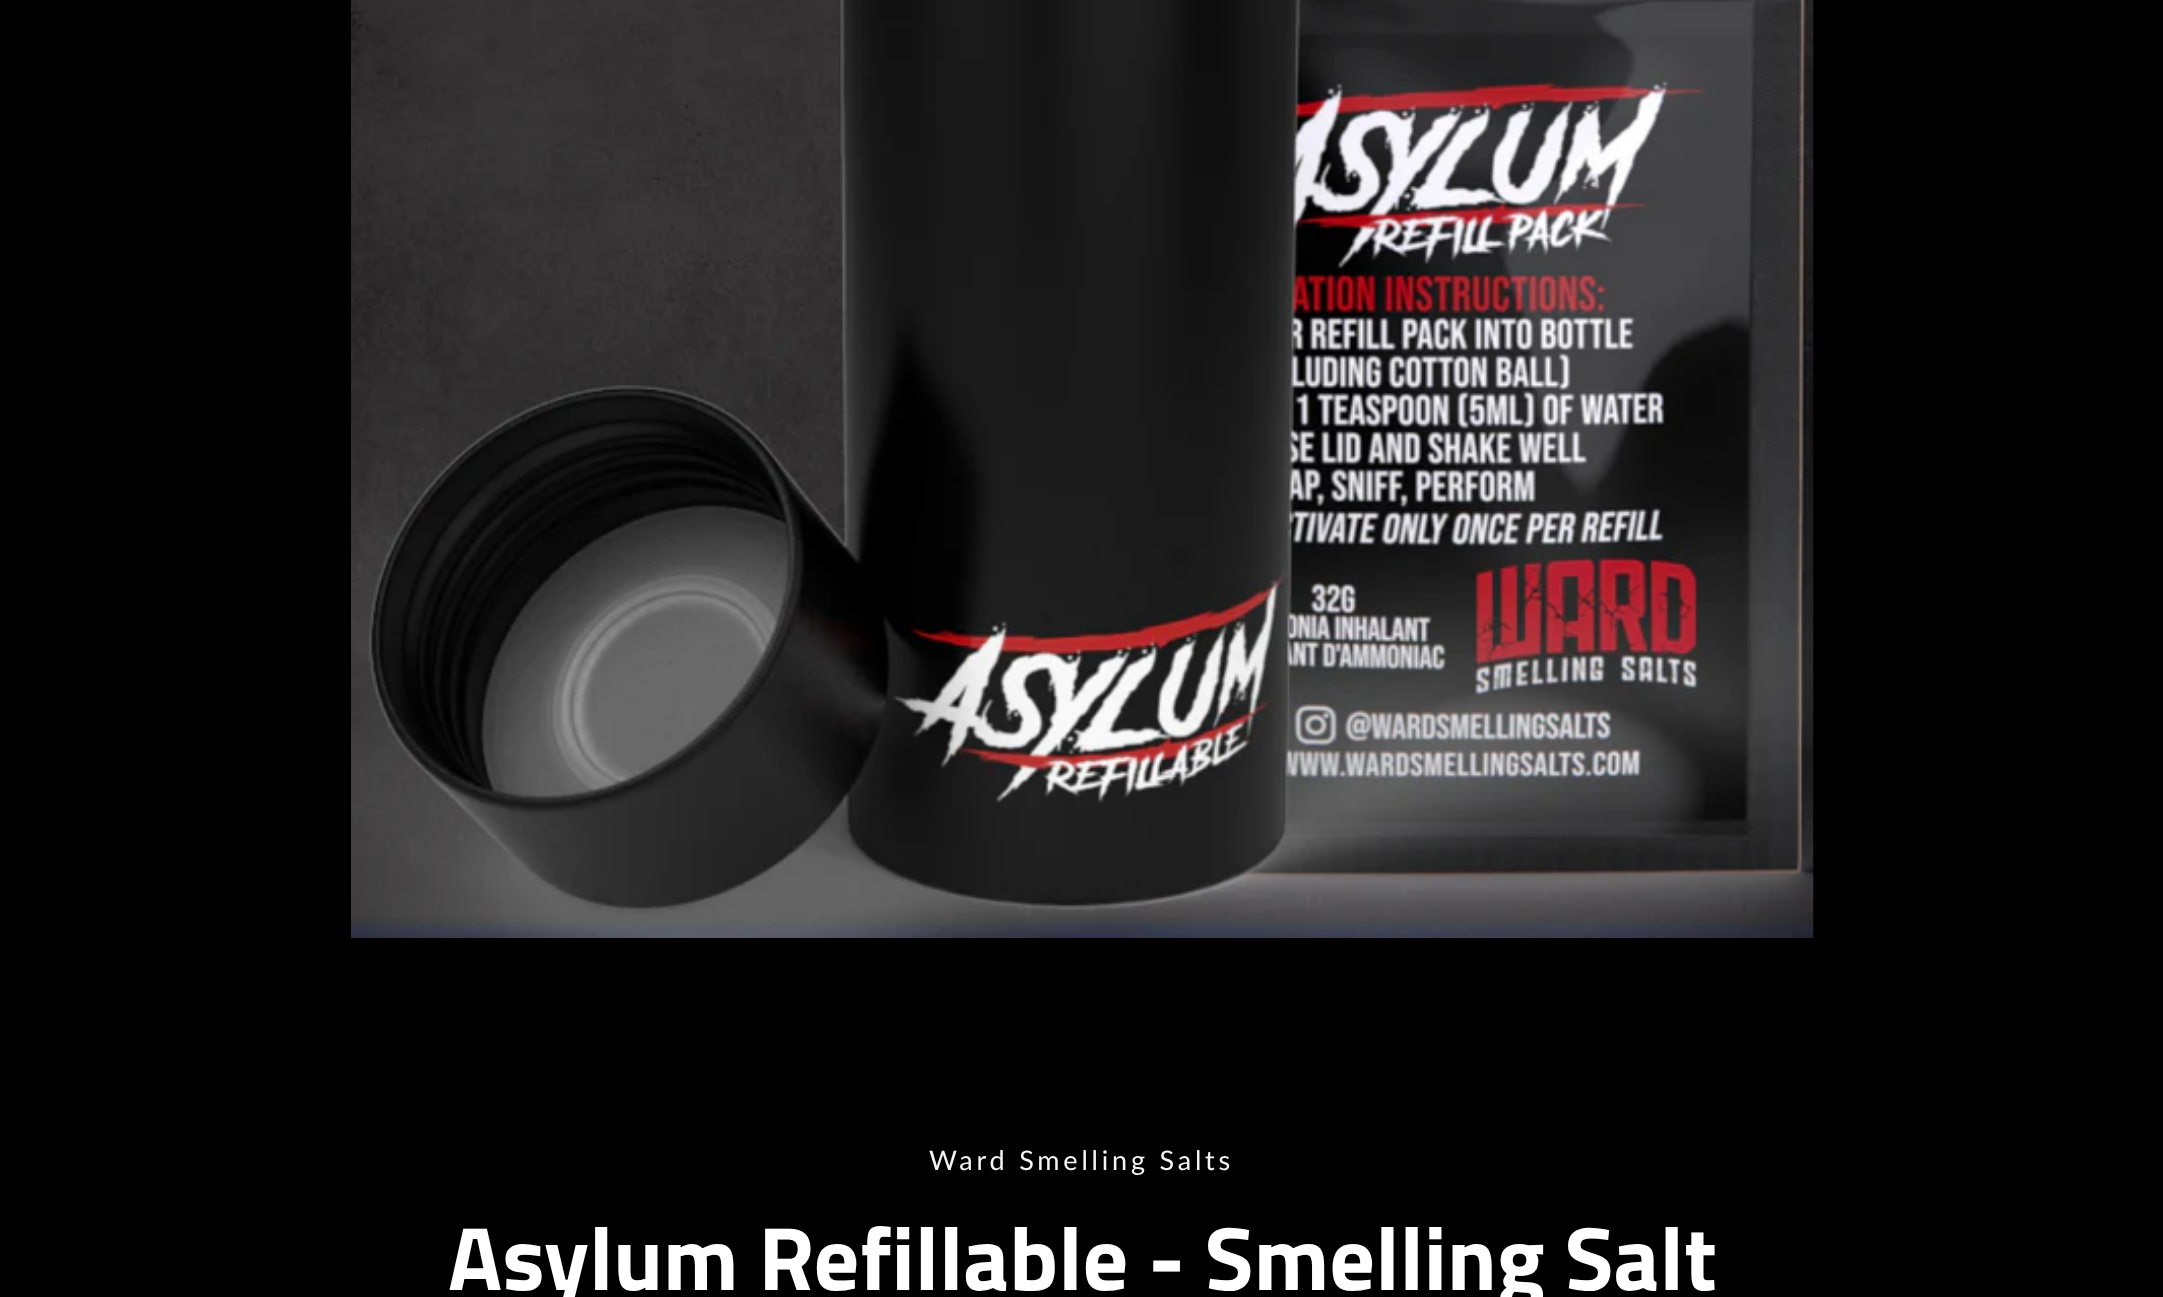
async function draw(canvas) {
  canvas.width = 2163
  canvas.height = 1297
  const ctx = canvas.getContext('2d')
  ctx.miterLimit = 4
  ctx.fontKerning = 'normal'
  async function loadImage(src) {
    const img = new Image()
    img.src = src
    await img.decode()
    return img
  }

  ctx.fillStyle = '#000'
  ctx.fillRect(0, 0, 2163, 1297)
  ctx.drawImage(await loadImage('image0.png'), 351, 0, 1463, 938)
  ctx.letterSpacing = '3.8px'
  ctx.font = '27px Lato'
  ctx.fillStyle = '#f5f5f5'
  ctx.fillText('Ward Smelling Salts', 929, 1170)
  ctx.letterSpacing = '0px'
  ctx.font = 'bold 90px Titillium Web'
  ctx.fillStyle = '#fff'
  ctx.fillText('Asylum Refillable - Smelling Salt', 448, 1290)
}

draw(document.querySelector('canvas'))
